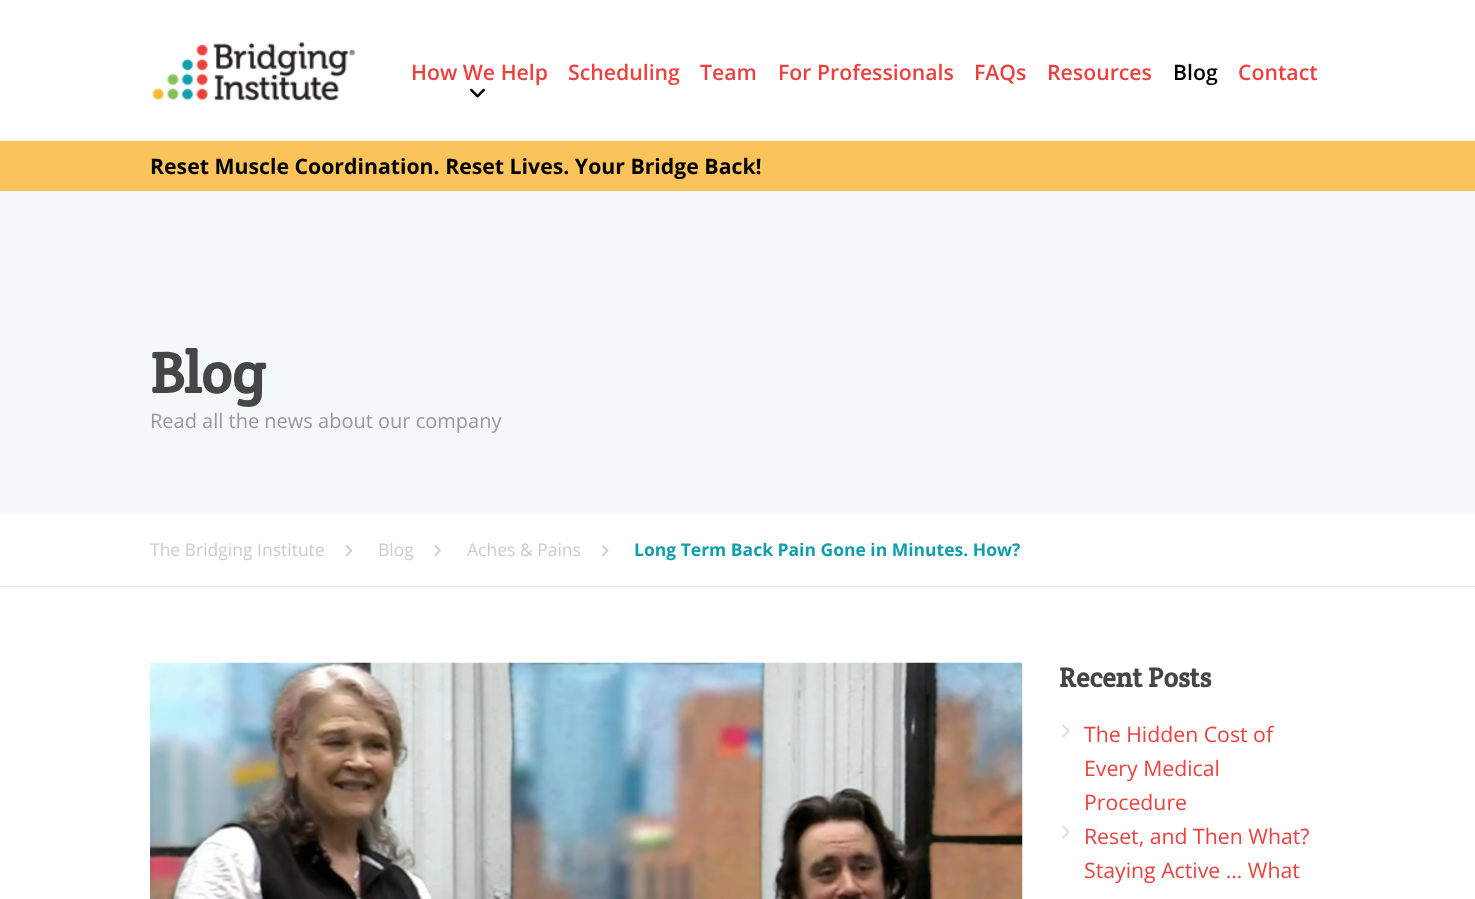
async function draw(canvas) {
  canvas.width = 1475
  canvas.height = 899
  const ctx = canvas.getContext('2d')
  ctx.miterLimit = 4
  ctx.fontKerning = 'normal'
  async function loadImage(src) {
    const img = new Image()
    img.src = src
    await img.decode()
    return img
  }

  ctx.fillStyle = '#fff'
  ctx.fillRect(0, 0, 1475, 899)
  ctx.drawImage(await loadImage('image0.png'), 152, 42, 204, 62)
  ctx.font = '600 21.25px Open Sans'
  ctx.fillStyle = '#eb423f'
  ctx.fillText('How We Help', 411, 80)
  ctx.drawImage(await loadImage('image1.png'), 470, 88, 15, 10)
  ctx.fillText('Scheduling', 568, 80)
  ctx.fillText('Team', 700, 80)
  ctx.fillText('For Professionals', 778, 80)
  ctx.fillText('FAQs', 974, 80)
  ctx.fillText('Resources', 1047, 80)
  ctx.fillStyle = '#000'
  ctx.fillText('Blog', 1173, 80)
  ctx.fillStyle = '#eb423f'
  ctx.fillText('Contact', 1238, 80)
  ctx.fillStyle = '#fac45a'
  ctx.fillRect(0, 141, 1475, 50)
  ctx.font = 'bold 21.25px Open Sans'
  ctx.fillStyle = '#000'
  ctx.fillText('Reset Muscle Coordination. Reset Lives. Your Bridge Back!', 150, 174)
  ctx.fillStyle = '#f5f8fb'
  ctx.fillRect(0, 191, 1475, 323)
  ctx.font = 'bold 58px Crete Round'
  ctx.fillStyle = '#464646'
  ctx.fillText('Blog', 150, 393)
  ctx.font = '20px Open Sans'
  ctx.fillStyle = '#999'
  ctx.fillText('Read all the news about our company', 150, 428)
  ctx.fillStyle = '#ededed'
  ctx.fillRect(0, 586, 1475, 1)
  ctx.font = '17.5px Open Sans'
  ctx.fillStyle = '#ccc'
  ctx.fillText('The Bridging Institute', 150, 556)
  ctx.drawImage(await loadImage('image2.png'), 345, 545, 8, 12)
  ctx.fillText('Blog', 378, 556)
  ctx.drawImage(await loadImage('image3.png'), 434, 545, 7, 12)
  ctx.fillText('Aches & Pains', 467, 556)
  ctx.drawImage(await loadImage('image4.png'), 602, 545, 7, 12)
  ctx.font = 'bold 17.5px Open Sans'
  ctx.fillStyle = '#119fad'
  ctx.fillText('Long Term Back Pain Gone in Minutes. How?', 634, 556)
  ctx.drawImage(await loadImage('image5.png'), 150, 662, 873, 237)
  ctx.font = 'bold 27.5px Crete Round'
  ctx.fillStyle = '#464646'
  ctx.fillText('Recent Posts', 1059, 687)
  ctx.drawImage(await loadImage('image6.png'), 1062, 724, 8, 14)
  ctx.font = '21.25px Open Sans'
  ctx.fillStyle = '#eb423f'
  ctx.fillText('The Hidden Cost of', 1084, 742)
  ctx.fillText('Every Medical', 1084, 776)
  ctx.fillText('Procedure', 1084, 810)
  ctx.drawImage(await loadImage('image7.png'), 1062, 825, 8, 14)
  ctx.fillText('Reset, and Then What?', 1084, 844)
  ctx.fillText('Staying Active … What', 1084, 878)
}

draw(document.querySelector('canvas'))
